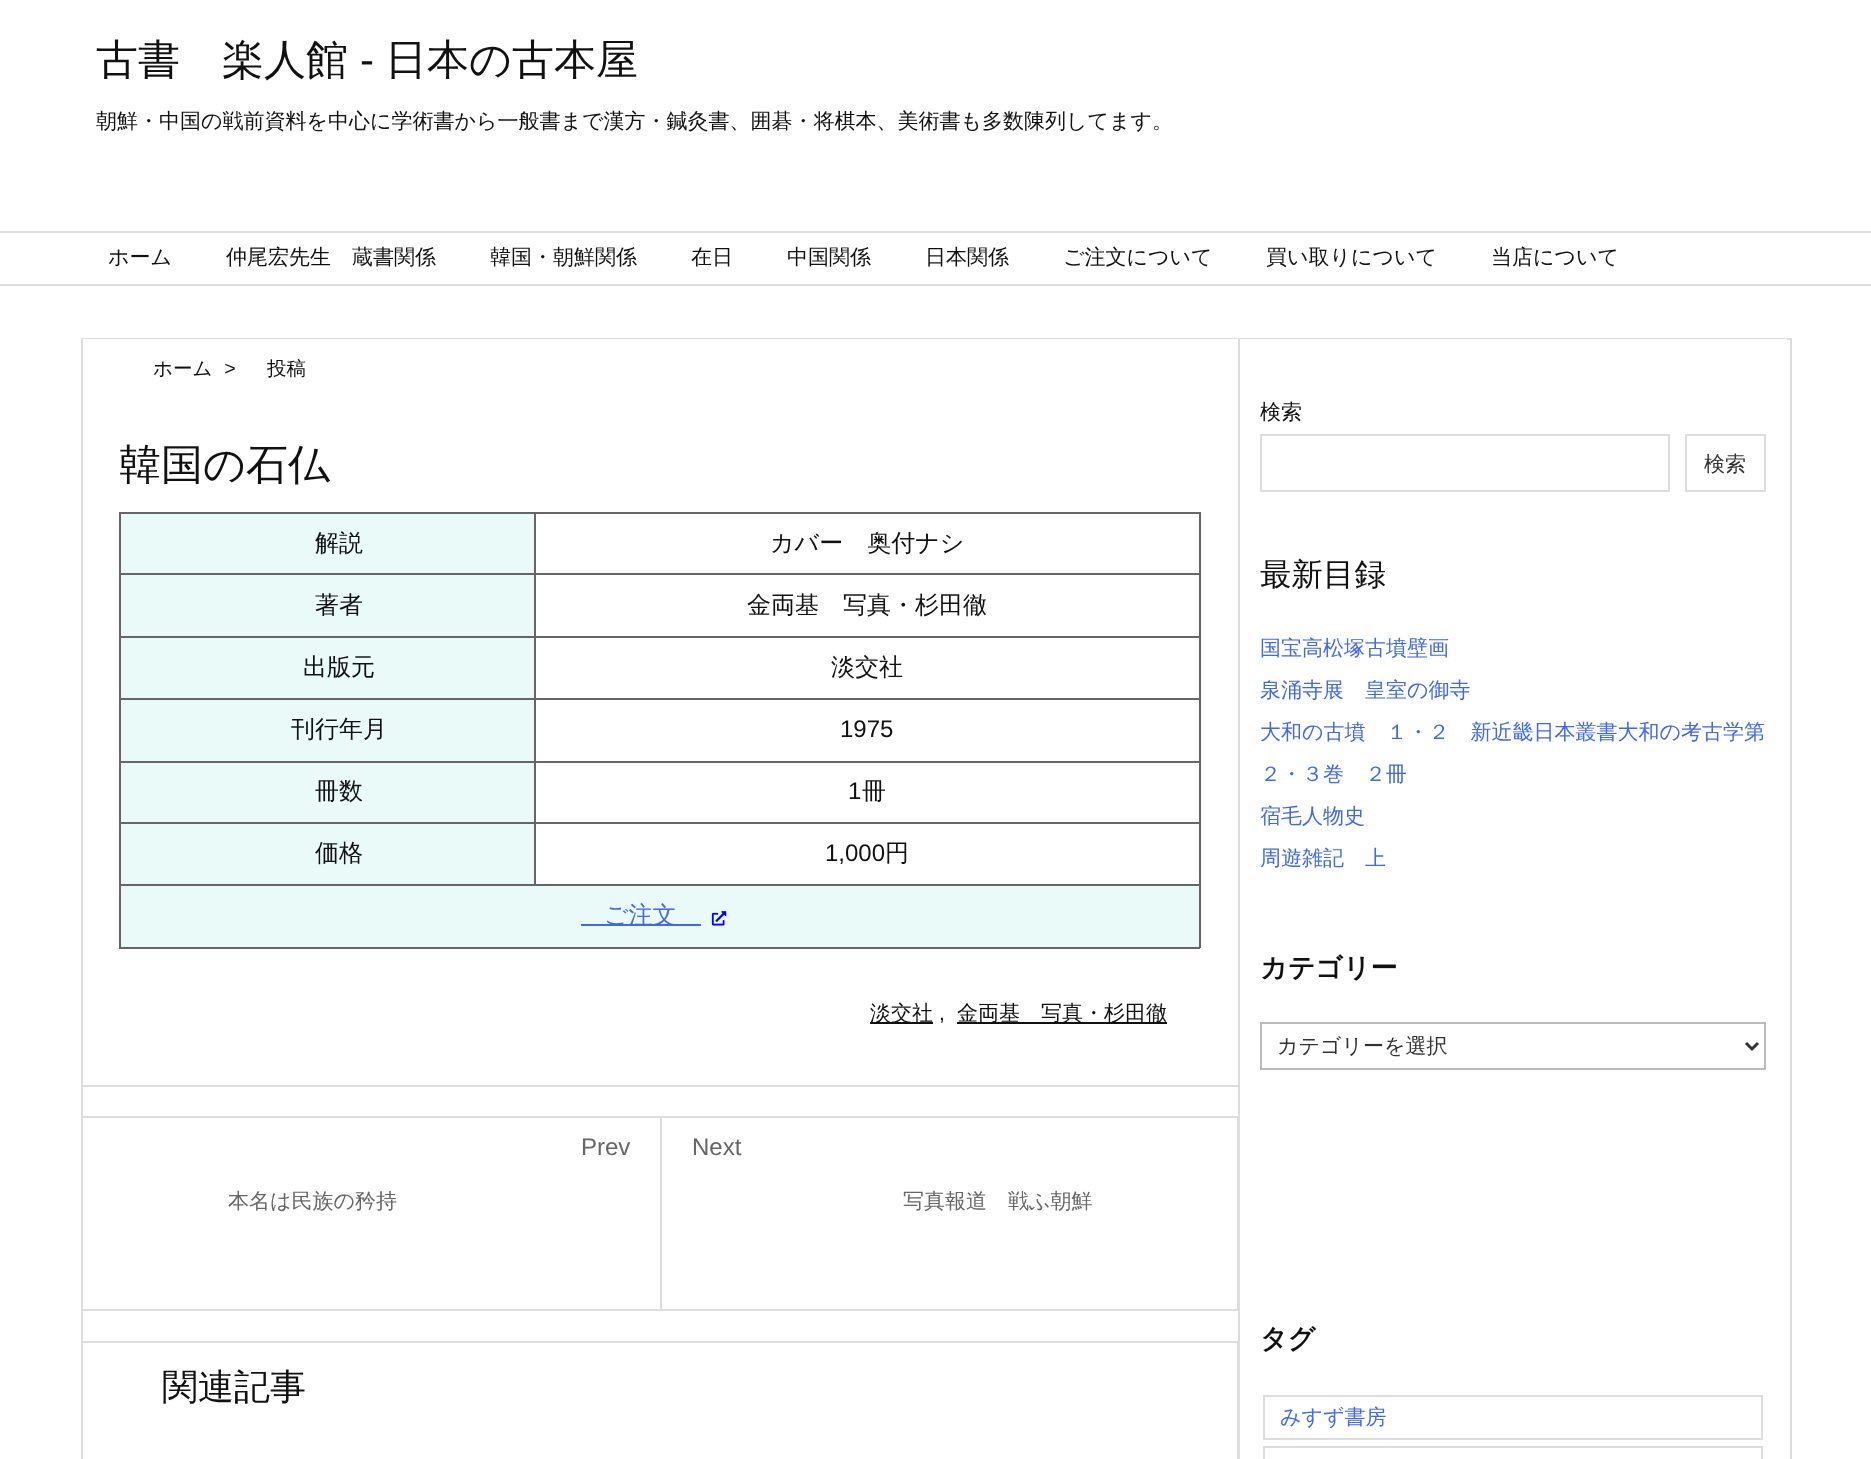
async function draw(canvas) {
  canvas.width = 1871
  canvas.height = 1459
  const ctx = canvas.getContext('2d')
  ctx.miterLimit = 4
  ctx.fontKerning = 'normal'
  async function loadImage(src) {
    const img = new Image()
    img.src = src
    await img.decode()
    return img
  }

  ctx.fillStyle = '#fff'
  ctx.fillRect(0, 0, 1871, 1459)
  ctx.font = '500 42px WenQuanYi Zen Hei'
  ctx.fillStyle = '#111'
  ctx.fillText('古書　楽人館', 96, 74)
  ctx.font = '42px Liberation Sans'
  ctx.fillText('-', 360, 74)
  ctx.font = '500 42px WenQuanYi Zen Hei'
  ctx.fillText('日本の古本屋', 385, 74)
  ctx.font = '500 21px WenQuanYi Zen Hei'
  ctx.fillText('朝鮮・中国の戦前資料を中心に学術書から一般書まで漢方・鍼灸書、囲碁・将棋本、美術書も多数陳列してます。', 96, 128)
  ctx.fillStyle = '#ddd'
  ctx.fillRect(0, 231, 1871, 2)
  ctx.fillRect(0, 284, 1871, 2)
  ctx.fillStyle = '#111'
  ctx.fillText('ホーム', 108, 264)
  ctx.fillText('仲尾宏先生　蔵書関係', 226, 264)
  ctx.fillText('韓国・朝鮮関係', 490, 264)
  ctx.fillText('在日', 691, 264)
  ctx.fillText('中国関係', 787, 264)
  ctx.fillText('日本関係', 925, 264)
  ctx.fillText('ご注文について', 1063, 264)
  ctx.fillText('買い取りについて', 1266, 264)
  ctx.fillText('当店について', 1491, 264)
  ctx.fillStyle = '#ddd'
  ctx.fillRect(81, 338, 1710, 2)
  ctx.fillRect(1790, 338, 2, 1121)
  ctx.fillRect(81, 338, 2, 1121)
  ctx.fillStyle = '#fff'
  ctx.fillRect(83, 339, 1155, 1)
  ctx.fillStyle = '#ddd'
  ctx.fillRect(83, 1085, 1156, 2)
  ctx.font = '500 19.5px WenQuanYi Zen Hei'
  ctx.fillStyle = '#111'
  ctx.fillText('ホーム', 153, 375)
  ctx.font = 'italic 19.5px Liberation Sans'
  ctx.fillText('>', 224, 375)
  ctx.font = '500 19.5px WenQuanYi Zen Hei'
  ctx.fillText('投稿', 267, 375)
  ctx.font = '500 42px WenQuanYi Zen Hei'
  ctx.fillText('韓国の石仏', 119, 479)
  ctx.fillStyle = '#e9faf9'
  ctx.fillRect(121, 514, 413, 59)
  ctx.fillStyle = '#666'
  ctx.fillRect(534, 512, 666, 2)
  ctx.fillRect(534, 573, 666, 2)
  ctx.fillRect(534, 636, 666, 2)
  ctx.fillRect(534, 698, 666, 2)
  ctx.fillRect(534, 761, 666, 2)
  ctx.fillRect(534, 822, 666, 2)
  ctx.fillRect(119, 884, 1081, 2)
  ctx.fillRect(534, 822, 2, 63)
  ctx.fillRect(119, 822, 417, 2)
  ctx.fillRect(534, 761, 2, 63)
  ctx.fillRect(119, 761, 417, 2)
  ctx.fillRect(534, 698, 2, 64)
  ctx.fillRect(119, 698, 417, 2)
  ctx.fillRect(534, 636, 2, 63)
  ctx.fillRect(119, 636, 417, 2)
  ctx.fillRect(534, 573, 2, 65)
  ctx.fillRect(119, 573, 417, 2)
  ctx.fillRect(534, 512, 2, 63)
  ctx.fillRect(119, 512, 417, 2)
  ctx.fillRect(1199, 884, 2, 64)
  ctx.fillRect(119, 947, 1081, 2)
  ctx.fillRect(119, 884, 2, 64)
  ctx.fillRect(119, 822, 2, 63)
  ctx.fillRect(119, 761, 2, 63)
  ctx.fillRect(119, 698, 2, 64)
  ctx.fillRect(119, 636, 2, 63)
  ctx.fillRect(119, 573, 2, 65)
  ctx.fillRect(119, 512, 2, 63)
  ctx.font = '500 24px WenQuanYi Zen Hei'
  ctx.fillStyle = '#111'
  ctx.fillText('解説', 315, 551)
  ctx.fillStyle = '#666'
  ctx.fillRect(1199, 822, 2, 63)
  ctx.fillRect(1199, 761, 2, 63)
  ctx.fillRect(1199, 698, 2, 64)
  ctx.fillRect(1199, 636, 2, 63)
  ctx.fillRect(1199, 573, 2, 65)
  ctx.fillRect(1199, 512, 2, 63)
  ctx.fillStyle = '#111'
  ctx.fillText('カバー　奥付ナシ', 770, 551)
  ctx.fillStyle = '#e9faf9'
  ctx.fillRect(121, 575, 413, 61)
  ctx.fillStyle = '#111'
  ctx.fillText('著者', 315, 613)
  ctx.fillText('金両基　写真・杉田徹', 747, 613)
  ctx.fillStyle = '#e9faf9'
  ctx.fillRect(121, 638, 413, 60)
  ctx.fillStyle = '#111'
  ctx.fillText('出版元', 303, 675)
  ctx.fillText('淡交社', 831, 675)
  ctx.fillStyle = '#e9faf9'
  ctx.fillRect(121, 700, 413, 61)
  ctx.fillStyle = '#111'
  ctx.fillText('刊行年月', 291, 737)
  ctx.font = '24px Liberation Sans'
  ctx.fillText('1975', 840, 737)
  ctx.fillStyle = '#e9faf9'
  ctx.fillRect(121, 763, 413, 59)
  ctx.font = '500 24px WenQuanYi Zen Hei'
  ctx.fillStyle = '#111'
  ctx.fillText('冊数', 315, 799)
  ctx.font = '24px Liberation Sans'
  ctx.fillText('1', 848, 799)
  ctx.font = '500 24px WenQuanYi Zen Hei'
  ctx.fillText('冊', 862, 799)
  ctx.fillStyle = '#e9faf9'
  ctx.fillRect(121, 824, 413, 60)
  ctx.fillStyle = '#111'
  ctx.fillText('価格', 315, 861)
  ctx.font = '24px Liberation Sans'
  ctx.fillText('1,000', 825, 861)
  ctx.font = '500 24px WenQuanYi Zen Hei'
  ctx.fillText('円', 885, 861)
  ctx.fillStyle = '#e9faf9'
  ctx.fillRect(121, 886, 1078, 61)
  ctx.fillStyle = '#4169e1'
  ctx.fillRect(581, 924, 120, 2)
  ctx.fillText('ご注文', 604, 923)
  ctx.drawImage(await loadImage('image0.png'), 711, 911, 16, 15)
  ctx.fillStyle = '#111'
  ctx.fillRect(870, 1022, 63, 2)
  ctx.font = '500 21px WenQuanYi Zen Hei'
  ctx.fillText('淡交社', 870, 1020)
  ctx.font = '21px Liberation Sans'
  ctx.fillText(',', 939, 1020)
  ctx.fillRect(957, 1022, 210, 2)
  ctx.font = '500 21px WenQuanYi Zen Hei'
  ctx.fillText('金両基　写真・杉田徹', 957, 1020)
  ctx.save()
  ctx.beginPath()
  ctx.rect(83, 339, 1707, 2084)
  ctx.clip()
  ctx.strokeStyle = '#ddd'
  ctx.lineWidth = 2
  ctx.strokeRect(82, 1342, 1156, 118)
  ctx.restore()
  ctx.fillStyle = '#ddd'
  ctx.fillRect(1238, 339, 2, 1120)
  ctx.save()
  ctx.beginPath()
  ctx.rect(83, 339, 1707, 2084)
  ctx.clip()
  ctx.strokeStyle = '#ddd'
  ctx.lineWidth = 2
  ctx.strokeRect(82, 1117, 1156, 193)
  ctx.restore()
  ctx.font = '24px Liberation Sans'
  ctx.fillStyle = '#666'
  ctx.fillText('Prev', 581, 1155)
  ctx.font = '500 21px WenQuanYi Zen Hei'
  ctx.fillText('本名は民族の矜持', 228, 1208)
  ctx.fillStyle = '#ddd'
  ctx.fillRect(660, 1118, 2, 192)
  ctx.font = '24px Liberation Sans'
  ctx.fillStyle = '#666'
  ctx.fillText('Next', 692, 1155)
  ctx.font = '500 21px WenQuanYi Zen Hei'
  ctx.fillText('写真報道　戦ふ朝鮮', 903, 1208)
  ctx.font = '500 36px WenQuanYi Zen Hei'
  ctx.fillStyle = '#111'
  ctx.fillText('関連記事', 162, 1399)
  ctx.fillStyle = '#fff'
  ctx.fillRect(1240, 339, 547, 1)
  ctx.font = '500 21px WenQuanYi Zen Hei'
  ctx.fillStyle = '#111'
  ctx.fillText('検索', 1260, 419)
  ctx.strokeStyle = '#ddd'
  ctx.lineWidth = 2
  ctx.strokeRect(1261, 435, 408, 56)
  ctx.strokeRect(1686, 435, 79, 56)
  ctx.fillStyle = '#333'
  ctx.fillText('検索', 1704, 471)
  ctx.font = '500 31.5px WenQuanYi Zen Hei'
  ctx.fillStyle = '#111'
  ctx.fillText('最新目録', 1260, 585)
  ctx.font = '500 21px WenQuanYi Zen Hei'
  ctx.fillStyle = '#4169e1'
  ctx.fillText('国宝高松塚古墳壁画', 1260, 655)
  ctx.fillText('泉涌寺展　皇室の御寺', 1260, 697)
  ctx.fillText('大和の古墳　１・２　新近畿日本叢書大和の考古学第', 1260, 739)
  ctx.fillText('２・３巻　２冊', 1260, 781)
  ctx.fillText('宿毛人物史', 1260, 823)
  ctx.fillText('周遊雑記　上', 1260, 865)
  ctx.font = 'bold 27px WenQuanYi Zen Hei'
  ctx.fillStyle = '#111'
  ctx.fillText('カテゴリー', 1260, 977)
  ctx.strokeStyle = '#bbb'
  ctx.strokeRect(1261, 1023, 504, 46)
  ctx.beginPath()
  ctx.moveTo(1746, 1043)
  ctx.lineTo(1752, 1049)
  ctx.lineTo(1758, 1043)
  ctx.strokeStyle = '#333'
  ctx.lineWidth = 3
  ctx.stroke()
  ctx.font = '500 21px WenQuanYi Zen Hei'
  ctx.fillStyle = '#333'
  ctx.fillText('カテゴリーを選択', 1277, 1053)
  ctx.font = 'bold 27px WenQuanYi Zen Hei'
  ctx.fillStyle = '#111'
  ctx.fillText('タグ', 1260, 1348)
  ctx.strokeStyle = '#ddd'
  ctx.lineWidth = 2
  ctx.strokeRect(1264, 1396, 498, 43)
  ctx.font = '500 21px WenQuanYi Zen Hei'
  ctx.fillStyle = '#4169e1'
  ctx.fillText('みすず書房', 1280, 1424)
  ctx.strokeRect(1264, 1447, 498, 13)
}

draw(document.querySelector('canvas'))
